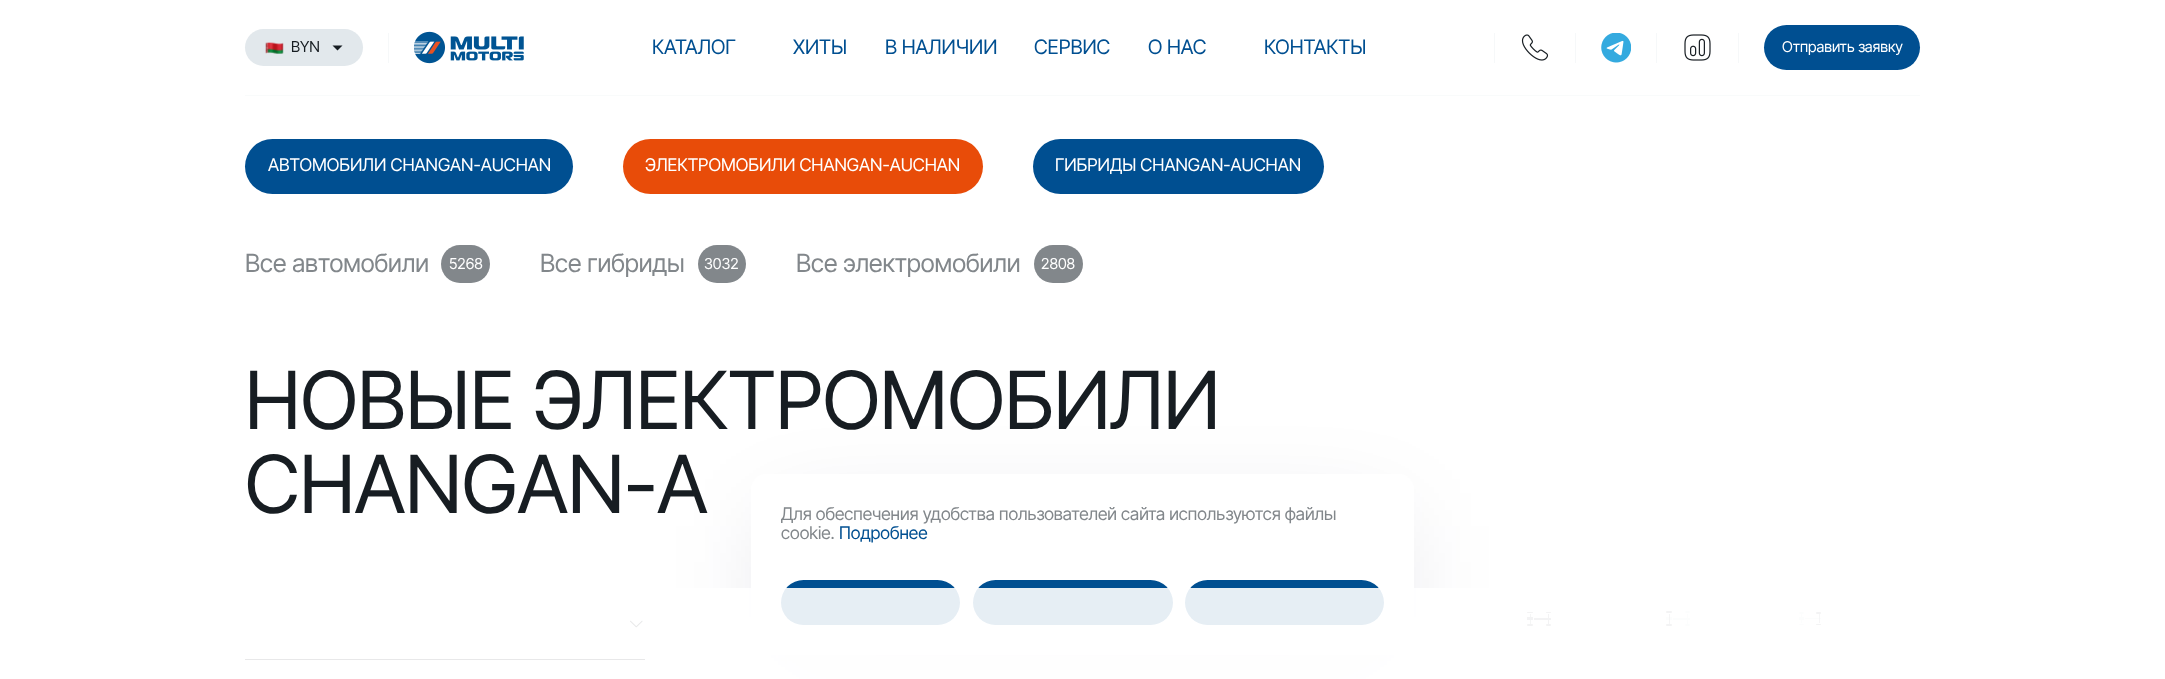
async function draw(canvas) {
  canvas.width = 2165
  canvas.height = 679
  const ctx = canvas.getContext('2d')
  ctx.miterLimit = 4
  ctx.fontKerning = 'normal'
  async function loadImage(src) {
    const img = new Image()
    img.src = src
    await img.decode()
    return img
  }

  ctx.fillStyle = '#fff'
  ctx.fillRect(0, 0, 2165, 679)
  ctx.fillStyle = '#f9fbfb'
  ctx.fillRect(245, 95, 1675, 1)
  ctx.fillStyle = '#e2e8ec'
  ctx.beginPath()
  ctx.roundRect(245, 29, 118, 37, 18.5)
  ctx.fill()
  ctx.drawImage(await loadImage('image0.png'), 265, 42, 19, 12)
  ctx.font = '15px Inter Tight'
  ctx.fillStyle = '#171d22'
  ctx.fillText('BYN', 291, 52)
  ctx.beginPath()
  ctx.moveTo(337.5, 50.5)
  ctx.lineTo(332.5, 45.5)
  ctx.lineTo(342.5, 45.5)
  ctx.closePath()
  ctx.fill()
  ctx.fillStyle = '#f6f8f9'
  ctx.fillRect(388, 33, 1, 30)
  ctx.drawImage(await loadImage('image1.png'), 414, 31, 110, 33)
  ctx.font = '20px Inter Tight'
  ctx.fillStyle = '#004f91'
  ctx.fillText('КАТАЛОГ', 652, 54)
  ctx.fillText('ХИТЫ', 793, 54)
  ctx.fillText('В НАЛИЧИИ', 885, 54)
  ctx.fillText('СЕРВИС', 1034, 54)
  ctx.fillText('О НАС', 1148, 54)
  ctx.fillText('КОНТАКТЫ', 1264, 54)
  ctx.fillStyle = '#f6f8f9'
  ctx.fillRect(1494, 33, 1, 30)
  ctx.drawImage(await loadImage('image2.png'), 1521, 34, 28, 27)
  ctx.fillRect(1575, 33, 1, 30)
  ctx.drawImage(await loadImage('image3.png'), 1601, 33, 30, 30)
  ctx.fillRect(1656, 33, 1, 30)
  ctx.drawImage(await loadImage('image4.png'), 1684, 34, 27, 27)
  ctx.fillRect(1738, 33, 1, 30)
  ctx.fillStyle = '#004f91'
  ctx.beginPath()
  ctx.roundRect(1764, 25, 156, 45, 22.5)
  ctx.fill()
  ctx.font = '15px Inter Tight'
  ctx.fillStyle = '#fff'
  ctx.fillText('Отправить заявку', 1782, 52)
  ctx.fillStyle = '#004f91'
  ctx.beginPath()
  ctx.roundRect(245, 139, 328, 55, 27.5)
  ctx.fill()
  ctx.font = '17.5px Inter Tight'
  ctx.fillStyle = '#fff'
  ctx.fillText('АВТОМОБИЛИ CHANGAN-AUCHAN', 268, 171)
  ctx.fillStyle = '#e84c09'
  ctx.beginPath()
  ctx.roundRect(623, 139, 360, 55, 27.5)
  ctx.fill()
  ctx.fillStyle = '#fff'
  ctx.fillText('ЭЛЕКТРОМОБИЛИ CHANGAN-AUCHAN', 645, 171)
  ctx.fillStyle = '#004f91'
  ctx.beginPath()
  ctx.roundRect(1033, 139, 291, 55, 27.5)
  ctx.fill()
  ctx.fillStyle = '#fff'
  ctx.fillText('ГИБРИДЫ CHANGAN-AUCHAN', 1055, 171)
  ctx.font = '25px Inter Tight'
  ctx.fillStyle = '#82878b'
  ctx.fillText('Все автомобили', 245, 272)
  ctx.beginPath()
  ctx.roundRect(441, 245, 49, 38, 19)
  ctx.fill()
  ctx.font = '15px Inter Tight'
  ctx.fillStyle = '#fff'
  ctx.fillText('5268', 449, 269)
  ctx.font = '25px Inter Tight'
  ctx.fillStyle = '#82878b'
  ctx.fillText('Все гибриды', 540, 272)
  ctx.beginPath()
  ctx.roundRect(698, 245, 48, 38, 19)
  ctx.fill()
  ctx.font = '15px Inter Tight'
  ctx.fillStyle = '#fff'
  ctx.fillText('3032', 704, 269)
  ctx.font = '25px Inter Tight'
  ctx.fillStyle = '#82878b'
  ctx.fillText('Все электромобили', 796, 272)
  ctx.beginPath()
  ctx.roundRect(1034, 245, 49, 38, 19)
  ctx.fill()
  ctx.font = '15px Inter Tight'
  ctx.fillStyle = '#fff'
  ctx.fillText('2808', 1041, 269)
  ctx.font = '80px Inter Tight'
  ctx.fillStyle = '#171d22'
  ctx.fillText('НОВЫЕ ЭЛЕКТРОМОБИЛИ', 245, 429)
  ctx.fillText('CHANGAN-A', 245, 513)
  ctx.drawImage(await loadImage('image5.png'), 1527, 612, 24, 14)
  ctx.drawImage(await loadImage('image6.png'), 1666, 611, 24, 15)
  ctx.drawImage(await loadImage('image7.png'), 1799, 612, 22, 13)
  ctx.fillRect(245, 659, 400, 1)
  ctx.drawImage(await loadImage('image8.png'), 629, 620, 14, 8)
  ctx.fillStyle = '#06032b24'
  ctx.filter = 'blur(50px)'
  ctx.beginPath()
  ctx.rect(776, 526, 613, 132)
  ctx.fill()
  ctx.filter = 'none'
  ctx.fillStyle = '#fff'
  ctx.beginPath()
  ctx.roundRect(751, 474, 663, 181, 15)
  ctx.fill()
  ctx.fillStyle = '#004f91'
  ctx.beginPath()
  ctx.roundRect(781, 580, 179, 45, 22.5)
  ctx.fill()
  ctx.beginPath()
  ctx.roundRect(973, 580, 200, 45, 22.5)
  ctx.fill()
  ctx.beginPath()
  ctx.roundRect(1185, 580, 199, 45, 22.5)
  ctx.fill()
  ctx.fillStyle = '#ffffffe6'
  ctx.fillRect(245, 588, 1576, 91)
  ctx.font = '17.5px Inter Tight'
  ctx.fillStyle = '#82878b'
  ctx.fillText('Для обеспечения удобства пользователей сайта используются файлы', 781, 520)
  ctx.fillText('cookie.', 781, 539)
  ctx.fillStyle = '#004f91'
  ctx.fillText('Подробнее', 839, 539)
}

draw(document.querySelector('canvas'))
